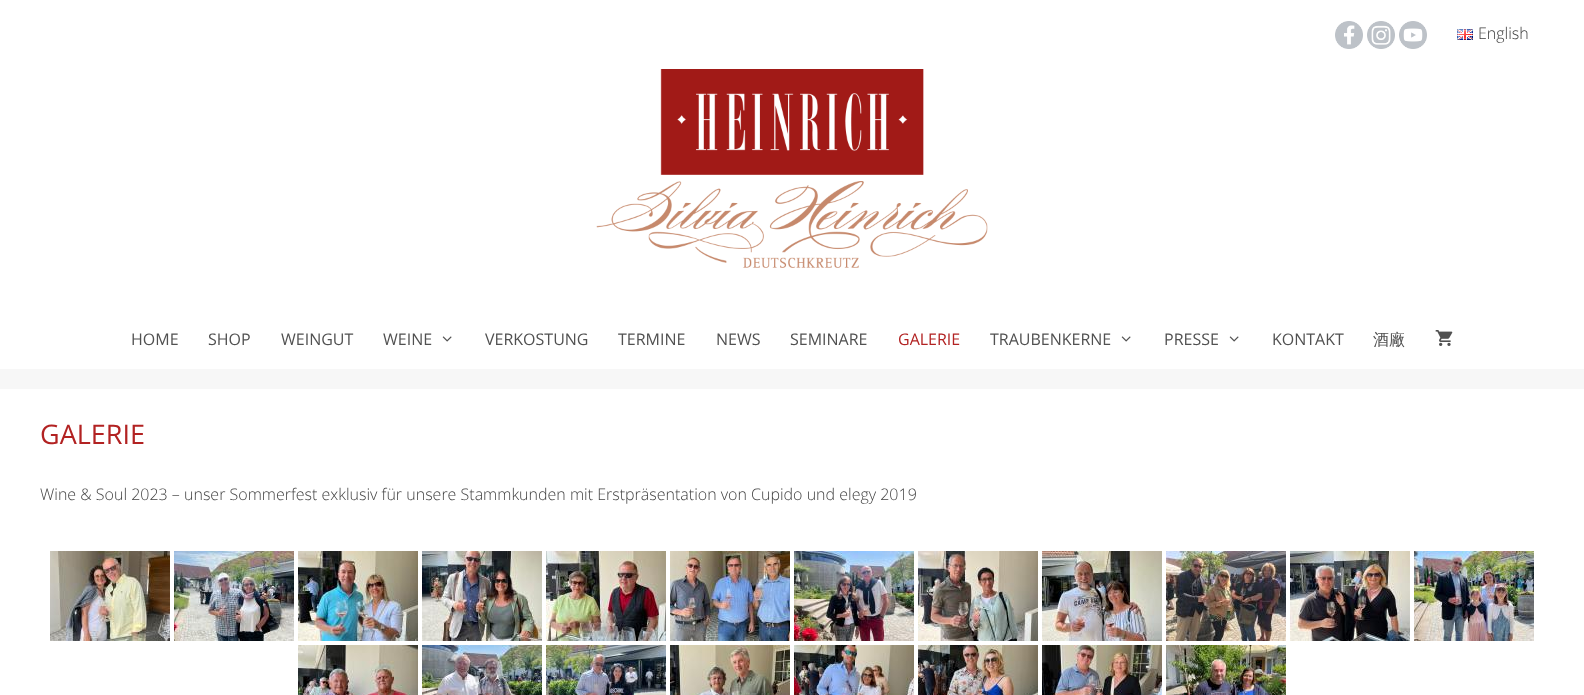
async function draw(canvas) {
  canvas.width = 1584
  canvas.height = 695
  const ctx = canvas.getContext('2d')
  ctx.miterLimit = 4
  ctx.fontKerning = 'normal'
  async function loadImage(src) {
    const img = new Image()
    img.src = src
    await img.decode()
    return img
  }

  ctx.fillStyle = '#f7f7f7'
  ctx.fillRect(0, 0, 1584, 695)
  ctx.fillStyle = '#fff'
  ctx.fillRect(0, 0, 1584, 369)
  ctx.drawImage(await loadImage('image0.png'), 1335, 21, 28, 28)
  ctx.drawImage(await loadImage('image1.png'), 1367, 21, 28, 28)
  ctx.drawImage(await loadImage('image2.png'), 1399, 21, 28, 28)
  ctx.drawImage(await loadImage('image3.png'), 1457, 29, 16, 11)
  ctx.font = '300 16px Open Sans'
  ctx.fillStyle = '#3a3a3a'
  ctx.fillText('English', 1478, 39)
  ctx.drawImage(await loadImage('image4.png'), 596, 69, 392, 199)
  ctx.font = '16px Open Sans'
  ctx.fillStyle = '#515151'
  ctx.fillText('HOME', 131, 345)
  ctx.fillText('SHOP', 208, 345)
  ctx.fillText('WEINGUT', 281, 345)
  ctx.fillText('WEINE', 383, 345)
  ctx.drawImage(await loadImage('image5.png'), 442, 336, 10, 6)
  ctx.fillText('VERKOSTUNG', 485, 345)
  ctx.fillText('TERMINE', 618, 345)
  ctx.fillText('NEWS', 716, 345)
  ctx.fillText('SEMINARE', 790, 345)
  ctx.fillStyle = '#b22222'
  ctx.fillText('GALERIE', 898, 345)
  ctx.fillStyle = '#515151'
  ctx.fillText('TRAUBENKERNE', 990, 345)
  ctx.drawImage(await loadImage('image5.png'), 1121, 336, 10, 6)
  ctx.fillText('PRESSE', 1164, 345)
  ctx.drawImage(await loadImage('image5.png'), 1229, 336, 10, 6)
  ctx.fillText('KONTAKT', 1272, 345)
  ctx.font = '500 16px WenQuanYi Zen Hei'
  ctx.fillText('酒廠', 1373, 345)
  ctx.drawImage(await loadImage('image6.png'), 1435, 330, 18, 16)
  ctx.fillStyle = '#fff'
  ctx.fillRect(0, 389, 1584, 306)
  ctx.font = '27px Open Sans'
  ctx.fillStyle = '#b22222'
  ctx.fillText('GALERIE', 40, 444)
  ctx.font = '300 16px Open Sans'
  ctx.fillStyle = '#444'
  ctx.fillText('Wine & Soul 2023 – unser Sommerfest exklusiv für unsere Stammkunden mit Erstpräsentation von Cupido und elegy 2019', 40, 500)
  ctx.drawImage(await loadImage('image7.png'), 50, 551, 120, 90)
  ctx.drawImage(await loadImage('image8.png'), 174, 551, 120, 90)
  ctx.drawImage(await loadImage('image9.png'), 298, 551, 120, 90)
  ctx.drawImage(await loadImage('image10.png'), 422, 551, 120, 90)
  ctx.drawImage(await loadImage('image11.png'), 546, 551, 120, 90)
  ctx.drawImage(await loadImage('image12.png'), 670, 551, 120, 90)
  ctx.drawImage(await loadImage('image13.png'), 794, 551, 120, 90)
  ctx.drawImage(await loadImage('image14.png'), 918, 551, 120, 90)
  ctx.drawImage(await loadImage('image15.png'), 1042, 551, 120, 90)
  ctx.drawImage(await loadImage('image16.png'), 1166, 551, 120, 90)
  ctx.drawImage(await loadImage('image17.png'), 1290, 551, 120, 90)
  ctx.drawImage(await loadImage('image18.png'), 1414, 551, 120, 90)
  ctx.drawImage(await loadImage('image19.png'), 298, 645, 120, 50)
  ctx.drawImage(await loadImage('image20.png'), 422, 645, 120, 50)
  ctx.drawImage(await loadImage('image21.png'), 546, 645, 120, 50)
  ctx.drawImage(await loadImage('image22.png'), 670, 645, 120, 50)
  ctx.drawImage(await loadImage('image23.png'), 794, 645, 120, 50)
  ctx.drawImage(await loadImage('image24.png'), 918, 645, 120, 50)
  ctx.drawImage(await loadImage('image25.png'), 1042, 645, 120, 50)
  ctx.drawImage(await loadImage('image26.png'), 1166, 645, 120, 50)
}

draw(document.querySelector('canvas'))
